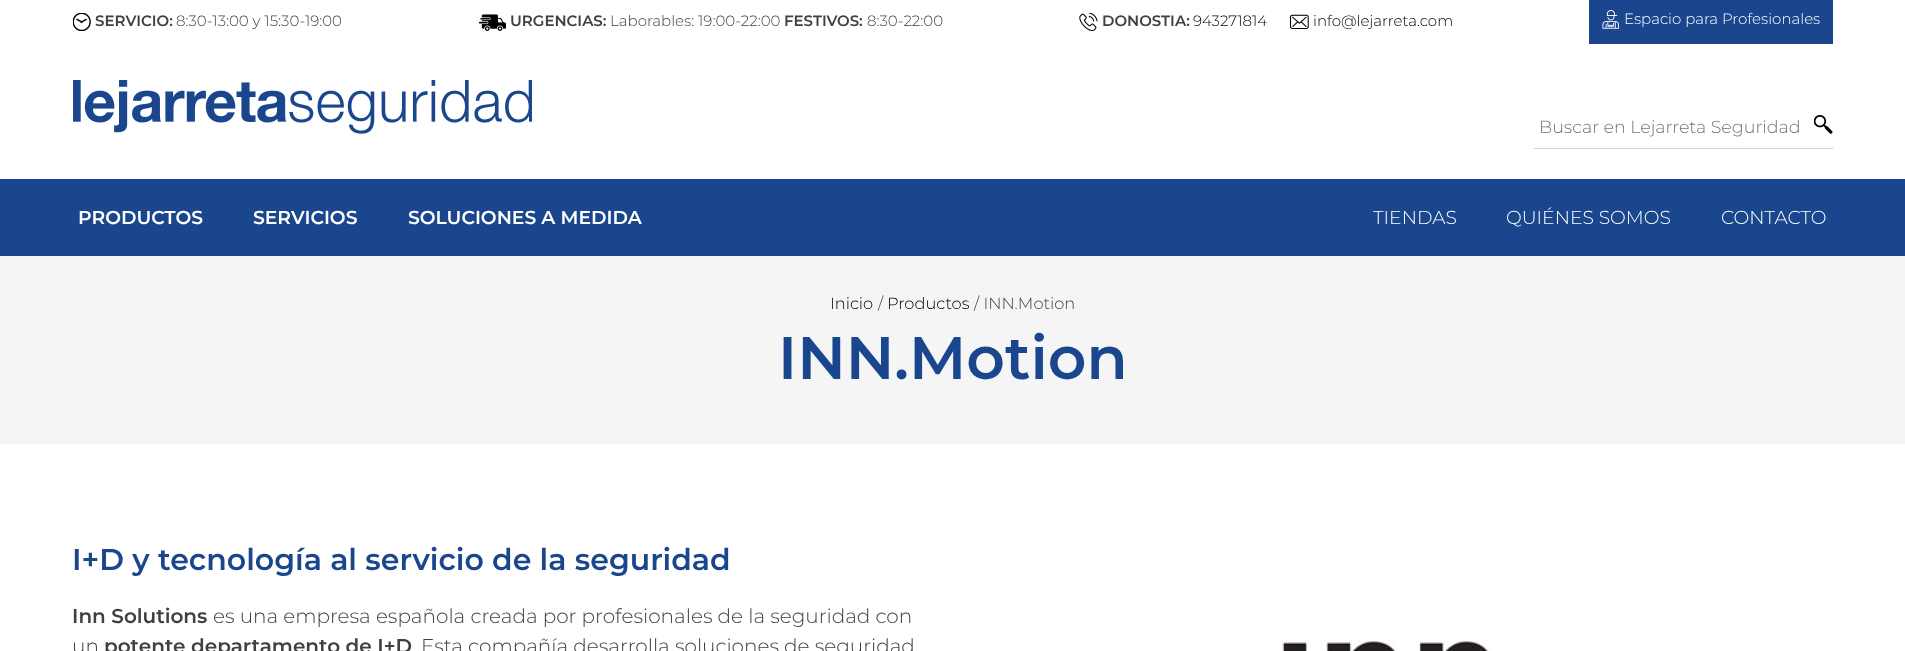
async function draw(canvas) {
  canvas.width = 1905
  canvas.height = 651
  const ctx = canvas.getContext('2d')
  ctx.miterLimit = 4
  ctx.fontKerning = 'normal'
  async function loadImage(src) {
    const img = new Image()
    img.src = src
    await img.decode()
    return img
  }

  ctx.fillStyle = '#fff'
  ctx.fillRect(0, 0, 1905, 651)
  ctx.drawImage(await loadImage('image0.png'), 73, 13, 18, 18)
  ctx.font = '600 15px Montserrat'
  ctx.fillStyle = '#404040'
  ctx.fillText('SERVICIO:', 95, 26)
  ctx.font = '300 15px Montserrat'
  ctx.fillText('8:30-13:00 y 15:30-19:00', 176, 26)
  ctx.drawImage(await loadImage('image1.png'), 479, 14, 27, 17)
  ctx.font = '600 15px Montserrat'
  ctx.fillText('URGENCIAS:', 510, 26)
  ctx.font = '300 15px Montserrat'
  ctx.fillText('Laborables: 19:00-22:00', 610, 26)
  ctx.font = '600 15px Montserrat'
  ctx.fillText('FESTIVOS:', 784, 26)
  ctx.font = '300 15px Montserrat'
  ctx.fillText('8:30-22:00', 867, 26)
  ctx.drawImage(await loadImage('image2.png'), 1079, 13, 19, 18)
  ctx.font = '600 15px Montserrat'
  ctx.fillText('DONOSTIA:', 1102, 26)
  ctx.font = '300 15px Montserrat'
  ctx.fillStyle = '#000'
  ctx.fillText('943271814', 1193, 26)
  ctx.drawImage(await loadImage('image3.png'), 1290, 14, 19, 15)
  ctx.fillText('info@lejarreta.com', 1313, 26)
  ctx.fillStyle = '#19468c'
  ctx.fillRect(1589, 0, 244, 44)
  ctx.drawImage(await loadImage('image4.png'), 1602, 10, 17, 19)
  ctx.fillStyle = '#fff'
  ctx.fillText('Espacio para Profesionales', 1624, 24)
  ctx.drawImage(await loadImage('image5.png'), 73, 80, 459, 54)
  ctx.fillStyle = '#d1d1d1'
  ctx.fillRect(1534, 148, 299, 1)
  ctx.font = '300 17.5px Montserrat'
  ctx.fillStyle = '#757575'
  ctx.fillText('Buscar en Lejarreta Seguridad', 1539, 133)
  ctx.drawImage(await loadImage('image6.png'), 1814, 115, 19, 19)
  ctx.fillStyle = '#19468c'
  ctx.fillRect(0, 179, 1905, 77)
  ctx.font = '600 18.75px Montserrat'
  ctx.fillStyle = '#fff'
  ctx.fillText('PRODUCTOS', 78, 224)
  ctx.fillText('SERVICIOS', 253, 224)
  ctx.fillText('SOLUCIONES A MEDIDA', 408, 224)
  ctx.font = '300 18.75px Montserrat'
  ctx.fillText('TIENDAS', 1373, 224)
  ctx.fillText('QUIÉNES SOMOS', 1506, 224)
  ctx.fillText('CONTACTO', 1721, 224)
  ctx.fillStyle = '#f5f5f5'
  ctx.fillRect(0, 256, 1905, 188)
  ctx.font = '300 16.25px Montserrat'
  ctx.fillStyle = '#000'
  ctx.fillText('Inicio', 830, 309)
  ctx.fillStyle = '#404040'
  ctx.fillText('/', 878, 309)
  ctx.fillStyle = '#000'
  ctx.fillText('Productos', 887, 309)
  ctx.fillStyle = '#404040'
  ctx.fillText('/ INN.Motion', 974, 309)
  ctx.font = '600 60px Montserrat'
  ctx.fillStyle = '#19468c'
  ctx.fillText('INN.Motion', 778, 379)
  ctx.font = '600 30px Montserrat'
  ctx.fillText('I+D y tecnología al servicio de la seguridad', 72, 570)
  ctx.font = '600 20px Montserrat'
  ctx.fillStyle = '#404040'
  ctx.fillText('Inn Solutions', 72, 623)
  ctx.font = '300 20px Montserrat'
  ctx.fillText('es una empresa española creada por profesionales de la seguridad con', 213, 623)
  ctx.fillText('un', 72, 653)
  ctx.font = '600 20px Montserrat'
  ctx.fillText('potente departamento de I+D', 104, 653)
  ctx.font = '300 20px Montserrat'
  ctx.fillText('Esta compañía desarrolla soluciones de seguridad', 421, 653)
  ctx.drawImage(await loadImage('image7.png'), 1279, 640, 211, 11)
}

draw(document.querySelector('canvas'))
